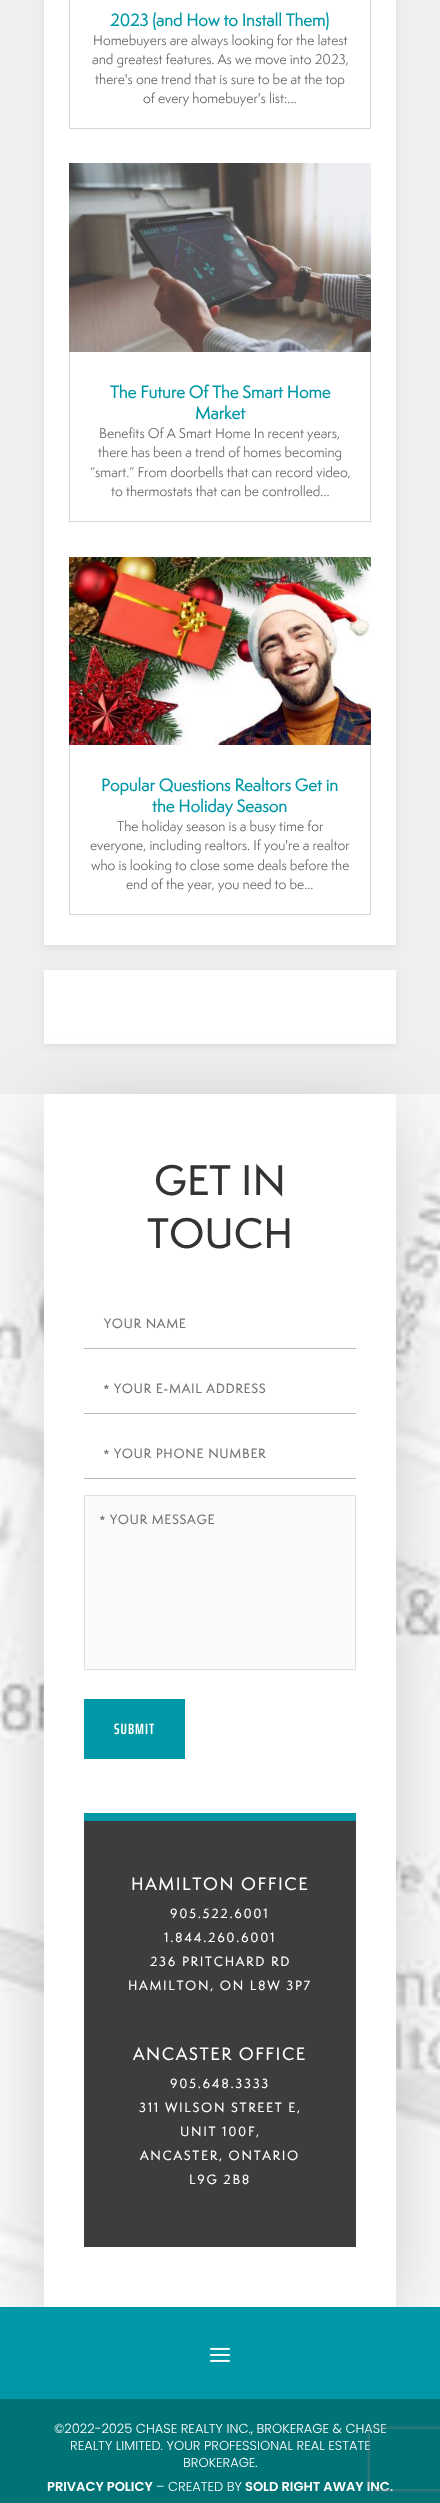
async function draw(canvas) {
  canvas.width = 440
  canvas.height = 2503
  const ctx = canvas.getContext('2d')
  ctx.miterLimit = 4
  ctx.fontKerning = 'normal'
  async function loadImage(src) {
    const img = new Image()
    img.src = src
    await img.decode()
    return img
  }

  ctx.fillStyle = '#efefef'
  ctx.fillRect(0, 0, 440, 2503)
  ctx.fillStyle = '#00000014'
  ctx.filter = 'blur(3.5px)'
  ctx.beginPath()
  ctx.rect(44, -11, 352, 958)
  ctx.fill()
  ctx.filter = 'none'
  ctx.fillStyle = '#fff'
  ctx.fillRect(44, 0, 352, 945)
  ctx.strokeStyle = '#d8d8d8'
  ctx.strokeRect(69.5, -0.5, 301, 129)
  ctx.font = 'bold 16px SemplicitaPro'
  ctx.fillStyle = '#0098a6'
  ctx.fillText('2023 (and How to Install Them)', 110, 26)
  ctx.font = '13px SemplicitaPro'
  ctx.fillStyle = '#666'
  ctx.fillText('Homebuyers are always looking for the latest', 93, 45)
  ctx.fillText('and greatest features. As we move into 2023,', 92, 64)
  ctx.fillText('there\'s one trend that is sure to be at the top', 95, 84)
  ctx.fillText('of every homebuyer\'s list:...', 143, 103)
  ctx.strokeRect(69.5, 163.5, 301, 358)
  ctx.drawImage(await loadImage('image0.png'), 69, 163, 302, 189)
  ctx.font = 'bold 16px SemplicitaPro'
  ctx.fillStyle = '#0098a6'
  ctx.fillText('The Future Of The Smart Home', 110, 398)
  ctx.fillText('Market', 195, 419)
  ctx.font = '13px SemplicitaPro'
  ctx.fillStyle = '#666'
  ctx.fillText('Benefits Of A Smart Home In recent years,', 99, 438)
  ctx.fillText('there has been a trend of homes becoming', 98, 457)
  ctx.fillText('“smart.” From doorbells that can record video,', 90, 477)
  ctx.fillText('to thermostats that can be controlled...', 111, 496)
  ctx.strokeRect(69.5, 557.5, 301, 357)
  ctx.drawImage(await loadImage('image1.png'), 69, 557, 302, 188)
  ctx.font = 'bold 16px SemplicitaPro'
  ctx.fillStyle = '#0098a6'
  ctx.fillText('Popular Questions Realtors Get in', 101, 791)
  ctx.fillText('the Holiday Season', 152, 812)
  ctx.font = '13px SemplicitaPro'
  ctx.fillStyle = '#666'
  ctx.fillText('The holiday season is a busy time for', 117, 831)
  ctx.fillText('everyone, including realtors. If you\'re a realtor', 90, 850)
  ctx.fillText('who is looking to close some deals before the', 91, 870)
  ctx.fillText('end of the year, you need to be...', 126, 889)
  ctx.fillStyle = '#00000014'
  ctx.filter = 'blur(3.5px)'
  ctx.beginPath()
  ctx.rect(44, 972, 352, 74)
  ctx.fill()
  ctx.filter = 'none'
  ctx.fillStyle = '#fff'
  ctx.fillRect(44, 970, 352, 74)
  ctx.drawImage(await loadImage('image2.png'), 0, 1094, 440, 1213)
  ctx.fillStyle = '#00000033'
  ctx.filter = 'blur(40px)'
  ctx.beginPath()
  ctx.rect(50, 1115, 340, 1201)
  ctx.fill()
  ctx.filter = 'none'
  ctx.fillStyle = '#fff'
  ctx.fillRect(44, 1094, 352, 1213)
  ctx.letterSpacing = '1px'
  ctx.font = 'bold 38px SemplicitaPro'
  ctx.fillStyle = '#333'
  ctx.fillText('GET IN', 154, 1195)
  ctx.fillText('TOUCH', 147, 1248)
  ctx.fillStyle = '#bbb'
  ctx.fillRect(84, 1348, 272, 1)
  ctx.font = 'bold 12px SemplicitaPro'
  ctx.fillStyle = '#757575'
  ctx.fillText('YOUR NAME', 104, 1328)
  ctx.fillStyle = '#bbb'
  ctx.fillRect(84, 1413, 272, 1)
  ctx.font = 'bold 12px Liberation Sans'
  ctx.fillStyle = '#757575'
  ctx.fillText('*', 104, 1393)
  ctx.font = 'bold 12px SemplicitaPro'
  ctx.fillText('YOUR E-MAIL ADDRESS', 114, 1393)
  ctx.fillStyle = '#bbb'
  ctx.fillRect(84, 1478, 272, 1)
  ctx.font = 'bold 12px Liberation Sans'
  ctx.fillStyle = '#757575'
  ctx.fillText('*', 104, 1458)
  ctx.font = 'bold 12px SemplicitaPro'
  ctx.fillText('YOUR PHONE NUMBER', 114, 1458)
  ctx.fillStyle = '#fafafa'
  ctx.beginPath()
  ctx.rect(84.5, 1495.5, 271, 174)
  ctx.fill()
  ctx.strokeStyle = '#dfdfe3'
  ctx.stroke()
  ctx.font = 'bold 12px Liberation Sans'
  ctx.fillStyle = '#757575'
  ctx.fillText('*', 100, 1524)
  ctx.font = 'bold 12px SemplicitaPro'
  ctx.fillText('YOUR MESSAGE', 110, 1524)
  ctx.fillStyle = '#0098a6'
  ctx.fillRect(84, 1699, 101, 60)
  ctx.font = '600 15px Saira ExtraCondensed'
  ctx.fillStyle = '#fff'
  ctx.fillText('SUBMIT', 114, 1734)
  ctx.fillStyle = '#3d3d3d'
  ctx.fillRect(84, 1821, 272, 426)
  ctx.fillStyle = '#0098a6'
  ctx.fillRect(84, 1813, 272, 8)
  ctx.letterSpacing = '2px'
  ctx.font = 'bold 16px SemplicitaPro'
  ctx.fillStyle = '#fff'
  ctx.fillText('HAMILTON OFFICE', 131, 1890)
  ctx.font = 'bold 12px SemplicitaPro'
  ctx.fillText('905.522.6001', 170, 1918)
  ctx.fillText('1.844.260.6001', 164, 1942)
  ctx.fillText('236 PRITCHARD RD', 150, 1966)
  ctx.fillText('HAMILTON, ON L8W 3P7', 128, 1990)
  ctx.font = 'bold 16px SemplicitaPro'
  ctx.fillText('ANCASTER OFFICE', 133, 2060)
  ctx.font = 'bold 12px SemplicitaPro'
  ctx.fillText('905.648.3333', 170, 2088)
  ctx.fillText('311 WILSON STREET E,', 139, 2112)
  ctx.fillText('UNIT 100F,', 180, 2136)
  ctx.fillText('ANCASTER, ONTARIO', 140, 2160)
  ctx.fillText('L9G 2B8', 189, 2184)
  ctx.fillStyle = '#0098a6'
  ctx.fillRect(0, 2307, 440, 92)
  ctx.drawImage(await loadImage('image3.png'), 210, 2347, 20, 15)
  ctx.fillStyle = '#007377'
  ctx.fillRect(0, 2399, 440, 104)
  ctx.letterSpacing = '0px'
  ctx.font = '300 13px Poppins'
  ctx.fillStyle = '#fff'
  ctx.fillText('©2022-2025 CHASE REALTY INC., BROKERAGE & CHASE', 54, 2433)
  ctx.fillText('REALTY LIMITED. YOUR PROFESSIONAL REAL ESTATE', 70, 2450)
  ctx.fillText('BROKERAGE.', 183, 2467)
  ctx.font = '600 13px Poppins'
  ctx.fillText('PRIVACY POLICY', 47, 2491)
  ctx.font = '300 13px Poppins'
  ctx.fillText('– CREATED BY', 156, 2491)
  ctx.font = '600 13px Poppins'
  ctx.fillText('SOLD RIGHT AWAY INC.', 245, 2491)
  ctx.save()
  ctx.beginPath()
  ctx.moveTo(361, 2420)
  ctx.lineTo(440, 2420)
  ctx.lineTo(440, 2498)
  ctx.lineTo(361, 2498)
  ctx.closePath()
  ctx.moveTo(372, 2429)
  ctx.lineTo(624, 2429)
  ctx.bezierCurveTo(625, 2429, 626, 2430, 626, 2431)
  ctx.lineTo(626, 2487)
  ctx.bezierCurveTo(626, 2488, 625, 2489, 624, 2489)
  ctx.lineTo(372, 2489)
  ctx.bezierCurveTo(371, 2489, 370, 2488, 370, 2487)
  ctx.lineTo(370, 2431)
  ctx.bezierCurveTo(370, 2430, 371, 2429, 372, 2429)
  ctx.closePath()
  ctx.clip('evenodd')
  ctx.fillStyle = '#808080'
  ctx.filter = 'blur(2.5px)'
  ctx.beginPath()
  ctx.roundRect(370, 2429, 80, 60, 2)
  ctx.fill()
  ctx.filter = 'none'
  ctx.restore()
}

draw(document.querySelector('canvas'))
